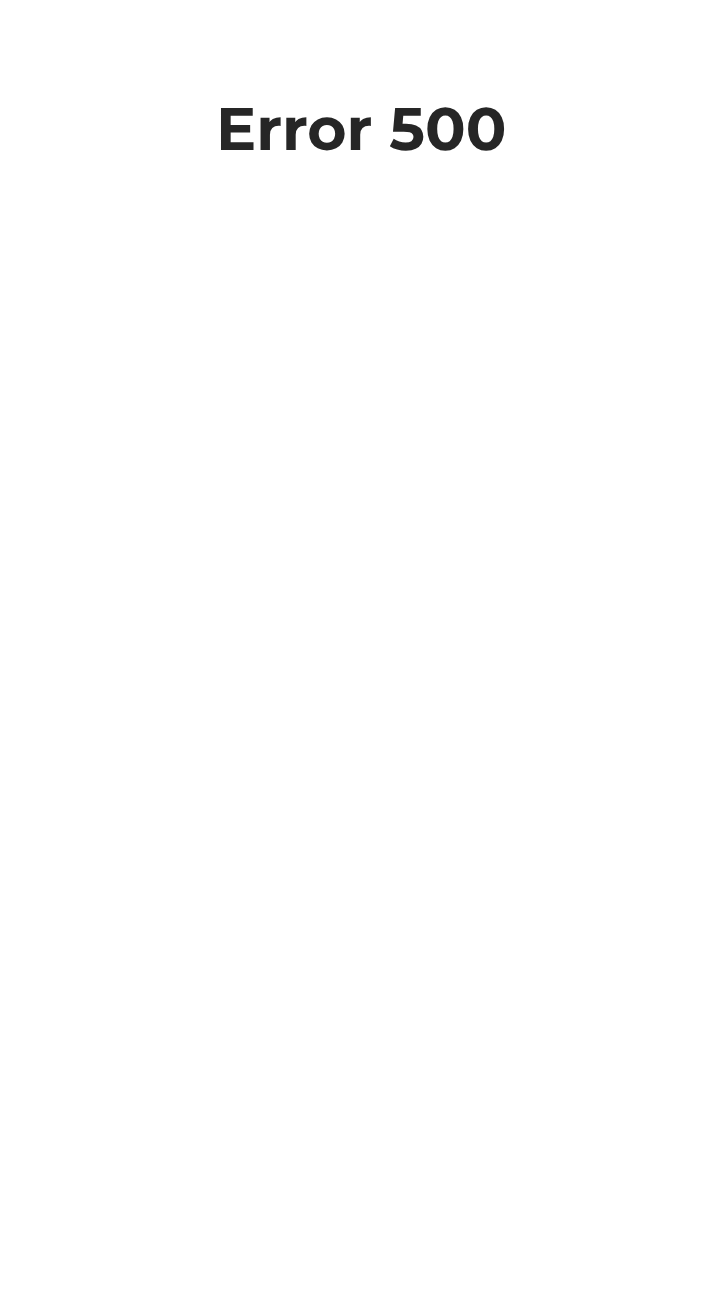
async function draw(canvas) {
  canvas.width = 722
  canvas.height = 1305
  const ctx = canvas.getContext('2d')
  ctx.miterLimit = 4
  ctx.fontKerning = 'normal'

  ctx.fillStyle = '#fff'
  ctx.fillRect(0, 0, 722, 1305)
  ctx.font = 'bold 60px Montserrat'
  ctx.fillStyle = '#262626'
  ctx.fillText('Error 500', 216, 150)
}

draw(document.querySelector('canvas'))
